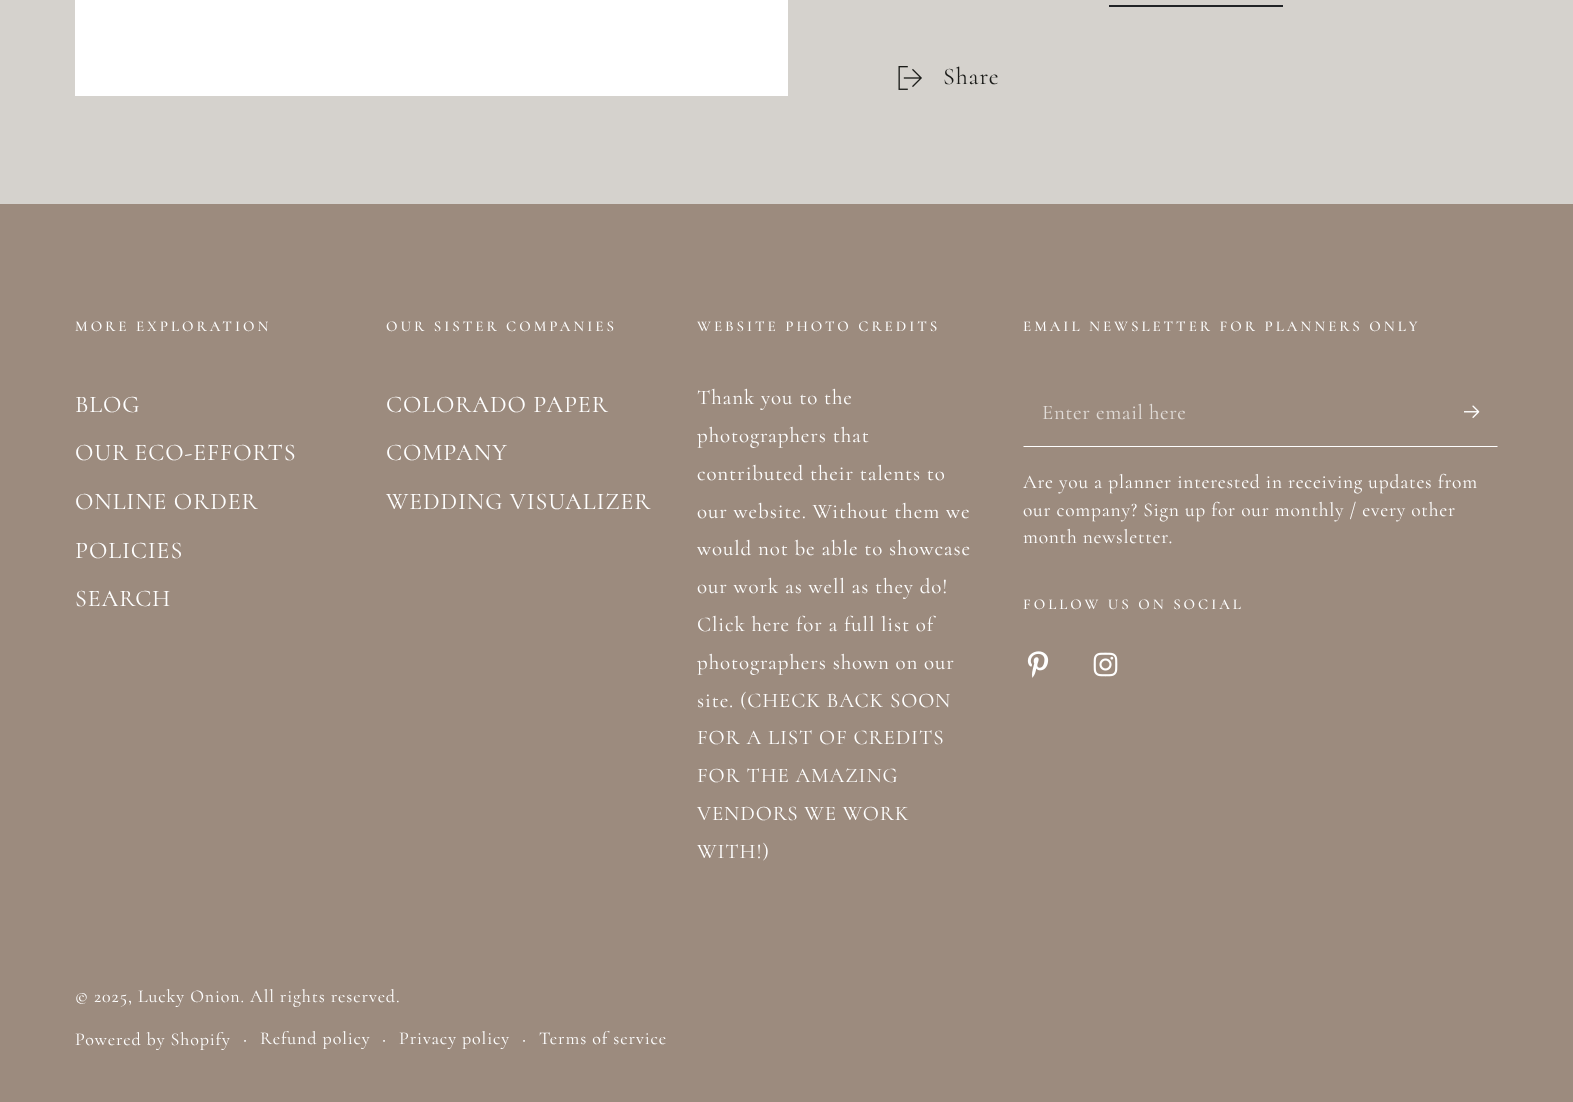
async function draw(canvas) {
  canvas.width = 1573
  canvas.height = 1102
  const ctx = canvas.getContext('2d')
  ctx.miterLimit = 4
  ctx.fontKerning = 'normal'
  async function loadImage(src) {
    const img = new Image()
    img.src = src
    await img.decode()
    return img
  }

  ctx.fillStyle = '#d5d2cd'
  ctx.fillRect(0, 0, 1573, 1102)
  ctx.fillStyle = '#fff'
  ctx.fillRect(75, 0, 713, 96)
  ctx.fillStyle = '#212326'
  ctx.fillRect(1109, 5, 174, 2)
  ctx.drawImage(await loadImage('image0.png'), 898, 66, 24, 24)
  ctx.letterSpacing = '0.9px'
  ctx.font = '24px Cormorant'
  ctx.fillStyle = '#1a1b18'
  ctx.fillText('Share', 943, 84)
  ctx.fillStyle = '#9c8b7e'
  ctx.fillRect(0, 204, 1573, 898)
  ctx.letterSpacing = '3px'
  ctx.font = '500 15px Cormorant'
  ctx.fillStyle = '#fff'
  ctx.fillText('MORE EXPLORATION', 75, 331)
  ctx.letterSpacing = '0.9px'
  ctx.font = '24px Cormorant'
  ctx.fillText('BLOG', 75, 412)
  ctx.wordSpacing = '-1px'
  ctx.fillText('OUR ECO-EFFORTS', 75, 460)
  ctx.wordSpacing = '0px'
  ctx.fillText('ONLINE ORDER', 75, 509)
  ctx.fillText('POLICIES', 75, 558)
  ctx.fillText('SEARCH', 75, 606)
  ctx.letterSpacing = '3px'
  ctx.font = '500 15px Cormorant'
  ctx.fillText('OUR SISTER COMPANIES', 386, 331)
  ctx.letterSpacing = '0.9px'
  ctx.font = '24px Cormorant'
  ctx.fillText('COLORADO PAPER', 386, 412)
  ctx.fillText('COMPANY', 386, 460)
  ctx.fillText('WEDDING VISUALIZER', 386, 509)
  ctx.letterSpacing = '3px'
  ctx.font = '500 15px Cormorant'
  ctx.fillText('WEBSITE PHOTO CREDITS', 697, 331)
  ctx.letterSpacing = '0.9px'
  ctx.font = '21px Cormorant'
  ctx.fillText('Thank you to the', 697, 404)
  ctx.fillText('photographers that', 697, 442)
  ctx.fillText('contributed their talents to', 697, 480)
  ctx.fillText('our website. Without them we', 697, 518)
  ctx.fillText('would not be able to showcase', 697, 555)
  ctx.fillText('our work as well as they do!', 697, 593)
  ctx.fillText('Click here for a full list of', 697, 631)
  ctx.fillText('photographers shown on our', 697, 669)
  ctx.fillText('site. (CHECK BACK SOON', 697, 707)
  ctx.fillText('FOR A LIST OF CREDITS', 697, 744)
  ctx.fillText('FOR THE AMAZING', 697, 782)
  ctx.fillText('VENDORS WE WORK', 697, 820)
  ctx.fillText('WITH!)', 697, 858)
  ctx.letterSpacing = '3px'
  ctx.font = '500 15px Cormorant'
  ctx.fillText('EMAIL NEWSLETTER FOR PLANNERS ONLY', 1023, 331)
  ctx.beginPath()
  ctx.moveTo(1498, 447)
  ctx.lineTo(1023, 447)
  ctx.lineTo(1024, 446)
  ctx.lineTo(1497, 446)
  ctx.closePath()
  ctx.fill()
  ctx.letterSpacing = '0.6px'
  ctx.font = '21px Cormorant'
  ctx.fillStyle = '#e1dcd8'
  ctx.fillText('Enter email here', 1042, 419)
  ctx.drawImage(await loadImage('image1.png'), 1464, 405, 16, 13)
  ctx.letterSpacing = '0.75px'
  ctx.font = '19.5px Cormorant'
  ctx.fillStyle = '#fff'
  ctx.fillText('Are you a planner interested in receiving updates from', 1023, 488)
  ctx.fillText('our company? Sign up for our monthly / every other', 1023, 516)
  ctx.fillText('month newsletter.', 1023, 543)
  ctx.letterSpacing = '3px'
  ctx.font = '500 15px Cormorant'
  ctx.fillText('FOLLOW US ON SOCIAL', 1023, 609)
  ctx.drawImage(await loadImage('image2.png'), 1027, 651, 22, 27)
  ctx.drawImage(await loadImage('image3.png'), 1093, 652, 25, 25)
  ctx.letterSpacing = '0.9px'
  ctx.font = '18px Cormorant'
  ctx.fillText('© 2025, Lucky Onion. All rights reserved.', 75, 1002)
  ctx.fillText('Powered by Shopify', 75, 1045)
  ctx.font = '21px Cormorant'
  ctx.fillText('·', 243, 1045)
  ctx.font = '18px Cormorant'
  ctx.fillText('Refund policy', 260, 1044)
  ctx.font = '21px Cormorant'
  ctx.fillText('·', 382, 1045)
  ctx.font = '18px Cormorant'
  ctx.fillText('Privacy policy', 399, 1044)
  ctx.font = '21px Cormorant'
  ctx.fillText('·', 522, 1045)
  ctx.font = '18px Cormorant'
  ctx.fillText('Terms of service', 539, 1044)
}

draw(document.querySelector('canvas'))
